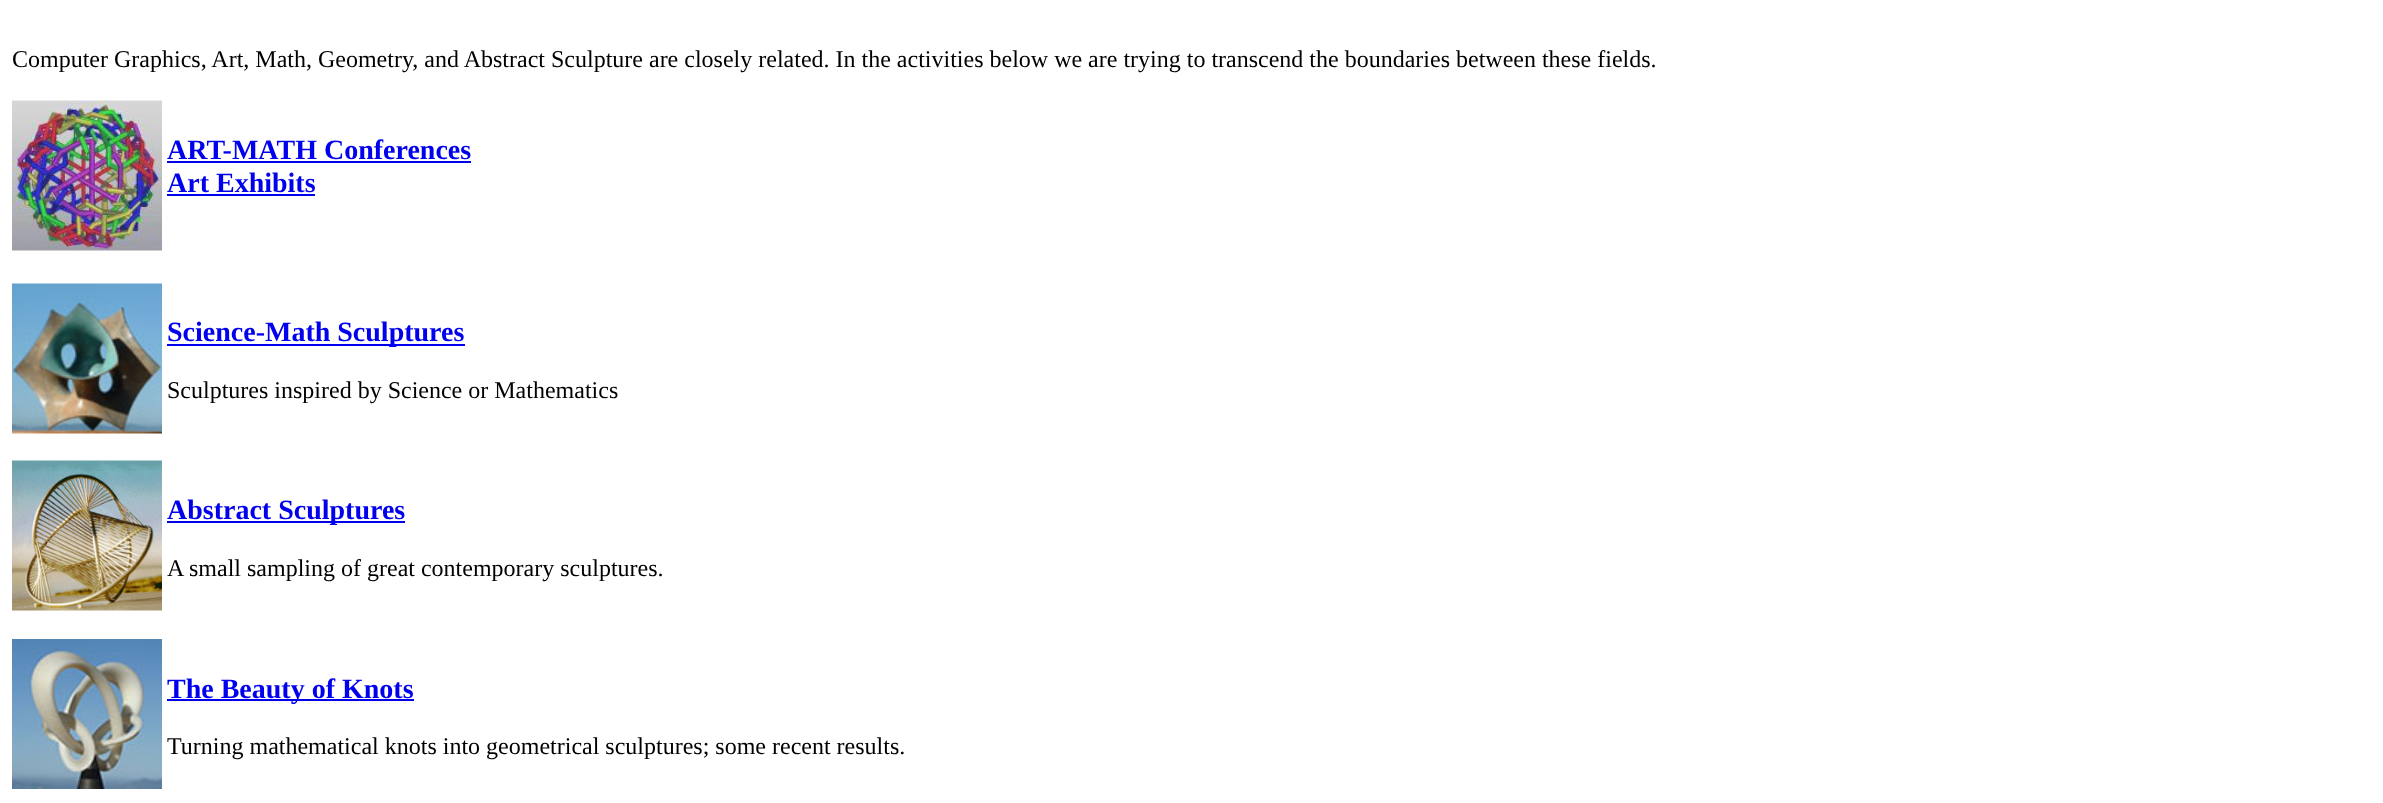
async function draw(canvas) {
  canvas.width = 2383
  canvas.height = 803
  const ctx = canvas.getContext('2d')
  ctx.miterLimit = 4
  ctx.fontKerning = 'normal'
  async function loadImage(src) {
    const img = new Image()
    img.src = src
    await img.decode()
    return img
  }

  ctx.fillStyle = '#fff'
  ctx.fillRect(0, 0, 2383, 803)
  ctx.font = '24px Liberation Serif'
  ctx.fillStyle = '#000'
  ctx.fillText('Computer Graphics, Art, Math, Geometry, and Abstract Sculpture are closely related. In the activities below we are trying to transcend the boundaries between these fields.', 12, 67)
  ctx.drawImage(await loadImage('image0.png'), 12, 100, 150, 151)
  ctx.font = 'bold 28px Liberation Serif'
  ctx.fillStyle = '#00e'
  ctx.fillText('ART-MATH Conferences', 167, 159)
  ctx.fillRect(167, 161, 304, 2)
  ctx.fillText('Art Exhibits', 167, 192)
  ctx.fillRect(167, 194, 148, 2)
  ctx.drawImage(await loadImage('image1.png'), 12, 283, 150, 151)
  ctx.fillRect(167, 344, 298, 2)
  ctx.fillText('Science-Math Sculptures', 167, 341)
  ctx.font = '24px Liberation Serif'
  ctx.fillStyle = '#000'
  ctx.fillText('Sculptures inspired by Science or Mathematics', 167, 398)
  ctx.drawImage(await loadImage('image2.png'), 12, 460, 150, 151)
  ctx.fillStyle = '#00e'
  ctx.fillRect(167, 521, 238, 2)
  ctx.font = 'bold 28px Liberation Serif'
  ctx.fillText('Abstract Sculptures', 167, 519)
  ctx.font = '24px Liberation Serif'
  ctx.fillStyle = '#000'
  ctx.fillText('A small sampling of great contemporary sculptures.', 167, 576)
  ctx.drawImage(await loadImage('image3.png'), 12, 639, 150, 150)
  ctx.fillStyle = '#00e'
  ctx.fillRect(167, 699, 247, 2)
  ctx.font = 'bold 28px Liberation Serif'
  ctx.fillText('The Beauty of Knots', 167, 698)
  ctx.font = '24px Liberation Serif'
  ctx.fillStyle = '#000'
  ctx.fillText('Turning mathematical knots into geometrical sculptures; some recent results.', 167, 754)
}

draw(document.querySelector('canvas'))
